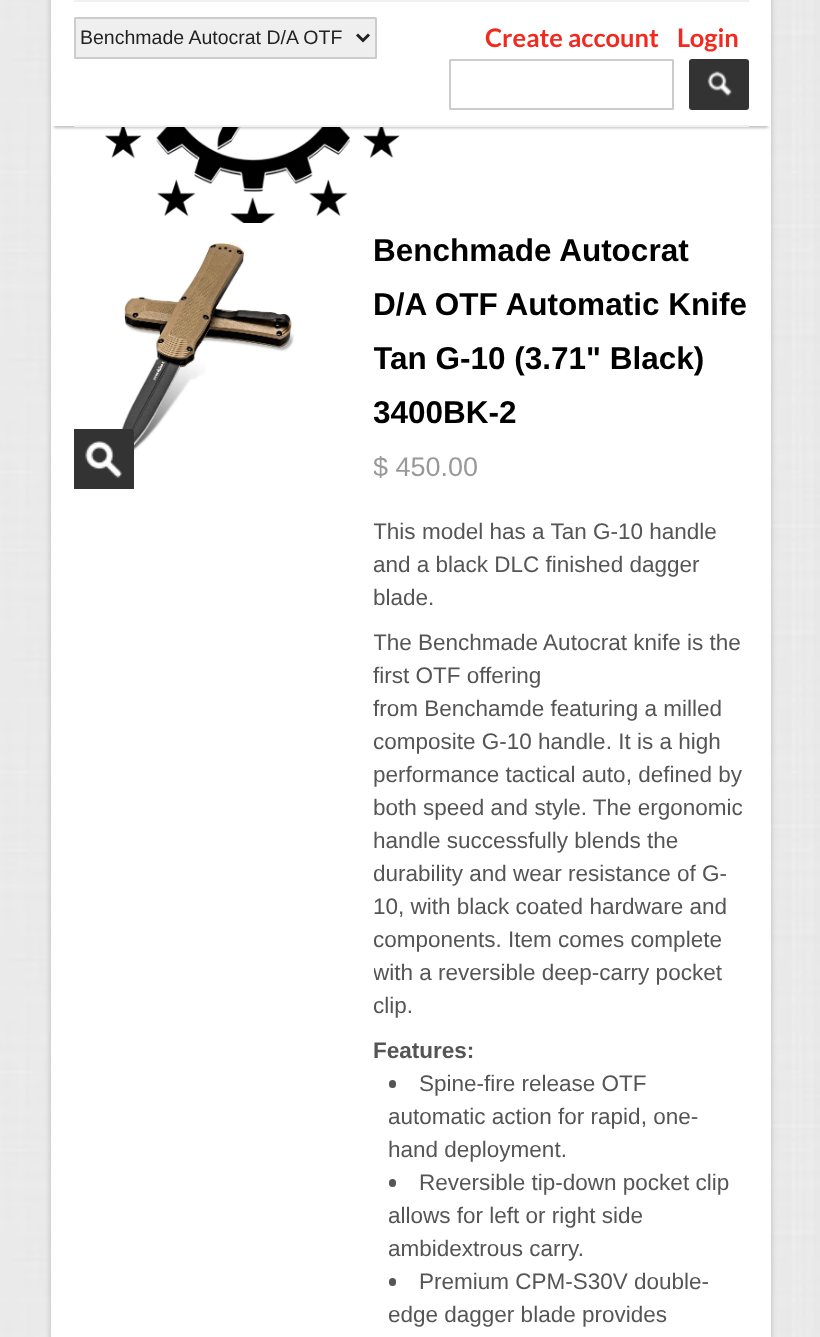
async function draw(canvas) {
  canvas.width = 820
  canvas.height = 1337
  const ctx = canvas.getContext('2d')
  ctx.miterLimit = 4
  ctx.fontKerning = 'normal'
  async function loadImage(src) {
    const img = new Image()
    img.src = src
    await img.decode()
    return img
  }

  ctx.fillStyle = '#fff'
  ctx.fillRect(0, 0, 820, 1337)
  ctx.drawImage(await loadImage('image0.png'), 0, 0, 820, 1337)
  ctx.fillStyle = '#00000033'
  ctx.filter = 'blur(3px)'
  ctx.beginPath()
  ctx.rect(51, -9, 720, 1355)
  ctx.fill()
  ctx.filter = 'none'
  ctx.fillStyle = '#fff'
  ctx.fillRect(51, 126, 720, 1211)
  ctx.drawImage(await loadImage('image2.png'), 105, 127, 295, 96)
  ctx.fillStyle = '#00000040'
  ctx.filter = 'blur(1.5px)'
  ctx.beginPath()
  ctx.rect(54, 8, 714, 120)
  ctx.fill()
  ctx.filter = 'none'
  ctx.fillStyle = '#fff'
  ctx.fillRect(51, 0, 720, 126)
  ctx.fillStyle = '#f0f0f0'
  ctx.fillRect(74, 0, 675, 2)
  ctx.fillRect(74, 125, 675, 2)
  ctx.fillStyle = '#efefef'
  ctx.beginPath()
  ctx.roundRect(75, 18, 301, 40, 0.5)
  ctx.fill()
  ctx.strokeStyle = '#ccc'
  ctx.lineWidth = 2
  ctx.stroke()
  ctx.beginPath()
  ctx.moveTo(357, 34.5)
  ctx.lineTo(363, 40.5)
  ctx.lineTo(369, 34.5)
  ctx.strokeStyle = '#222'
  ctx.lineWidth = 3
  ctx.stroke()
  ctx.font = '19.5px Liberation Sans'
  ctx.fillStyle = '#222'
  ctx.fillText('Benchmade Autocrat D/A OTF', 80, 44)
  ctx.font = 'bold 25.5px Lato'
  ctx.fillStyle = '#f1291f'
  ctx.fillText('Create account', 485, 47)
  ctx.fillText('Login', 677, 47)
  ctx.beginPath()
  ctx.roundRect(450, 60, 223, 49, 0.5)
  ctx.strokeStyle = '#ccc'
  ctx.lineWidth = 2
  ctx.stroke()
  ctx.fillStyle = '#333'
  ctx.beginPath()
  ctx.roundRect(689, 59, 60, 51, 3)
  ctx.fill()
  ctx.drawImage(await loadImage('image1.png'), 707, 71, 26, 26)
  ctx.drawImage(await loadImage('image4.png'), 115, 223, 179, 240)
  ctx.beginPath()
  ctx.roundRect(74, 429, 60, 60, [0, 3, 0, 0])
  ctx.fill()
  ctx.drawImage(await loadImage('image3.png'), 85, 441, 37, 37)
  ctx.font = 'bold 31.5px Liberation Sans'
  ctx.fillStyle = '#000'
  ctx.fillText('Benchmade Autocrat', 373, 261)
  ctx.fillText('D/A OTF Automatic Knife', 373, 315)
  ctx.save()
  ctx.beginPath()
  ctx.rect(374, 224, 375, 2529)
  ctx.clip()
  ctx.fillText('Tan G-10 (3.71" Black)', 373, 369)
  ctx.fillText('3400BK-2', 373, 423)
  ctx.font = '27px Liberation Sans'
  ctx.fillStyle = '#999'
  ctx.fillText('$ 450.00', 373, 476)
  ctx.font = '22.5px Liberation Sans'
  ctx.fillStyle = '#555'
  ctx.fillText('This', 373, 539)
  ctx.restore()
  ctx.font = '22.5px Liberation Sans'
  ctx.fillStyle = '#555'
  ctx.fillText('model has a Tan G-10 handle', 422, 539)
  ctx.save()
  ctx.beginPath()
  ctx.rect(374, 224, 375, 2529)
  ctx.clip()
  ctx.fillText('and a black DLC finished dagger', 373, 572)
  ctx.restore()
  ctx.fillText('blade.', 373, 605)
  ctx.save()
  ctx.beginPath()
  ctx.rect(374, 224, 375, 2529)
  ctx.clip()
  ctx.fillText('The Benchmade Autocrat knife is the', 373, 650)
  ctx.restore()
  ctx.fillText('first OTF offering', 373, 683)
  ctx.fillText('from Benchamde featuring a milled', 373, 716)
  ctx.save()
  ctx.beginPath()
  ctx.rect(374, 224, 375, 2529)
  ctx.clip()
  ctx.fillText('composite G-10 handle. It is a high', 373, 749)
  ctx.restore()
  ctx.fillText('performance tactical auto, defined by', 373, 782)
  ctx.fillText('both speed and style. The ergonomic', 373, 815)
  ctx.fillText('handle successfully blends the', 373, 848)
  ctx.save()
  ctx.beginPath()
  ctx.rect(374, 224, 375, 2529)
  ctx.clip()
  ctx.fillText('durability and wear resistance of G-', 373, 881)
  ctx.restore()
  ctx.fillText('10, with black coated hardware and', 373, 914)
  ctx.save()
  ctx.beginPath()
  ctx.rect(374, 224, 375, 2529)
  ctx.clip()
  ctx.fillText('components. Item comes complete', 373, 947)
  ctx.fillText('with a reversible deep-carry pocket', 373, 980)
  ctx.fillText('clip.', 373, 1013)
  ctx.restore()
  ctx.font = 'bold 22.5px Liberation Sans'
  ctx.fillText('Features:', 373, 1058)
  ctx.beginPath()
  ctx.roundRect(389, 1080, 7, 8, 3.5)
  ctx.fill()
  ctx.font = '22.5px Liberation Sans'
  ctx.fillText('Spine-fire release OTF', 419, 1091)
  ctx.fillText('automatic action for rapid, one-', 388, 1124)
  ctx.fillText('hand deployment.', 388, 1157)
  ctx.beginPath()
  ctx.roundRect(389, 1179, 7, 8, 3.5)
  ctx.fill()
  ctx.fillText('Reversible tip-down pocket clip', 419, 1190)
  ctx.fillText('allows for left or right side', 388, 1223)
  ctx.fillText('ambidextrous carry.', 388, 1256)
  ctx.beginPath()
  ctx.roundRect(389, 1278, 7, 8, 3.5)
  ctx.fill()
  ctx.fillText('Premium CPM-S30V double-', 419, 1289)
  ctx.fillText('edge dagger blade provides', 388, 1322)
}

draw(document.querySelector('canvas'))
